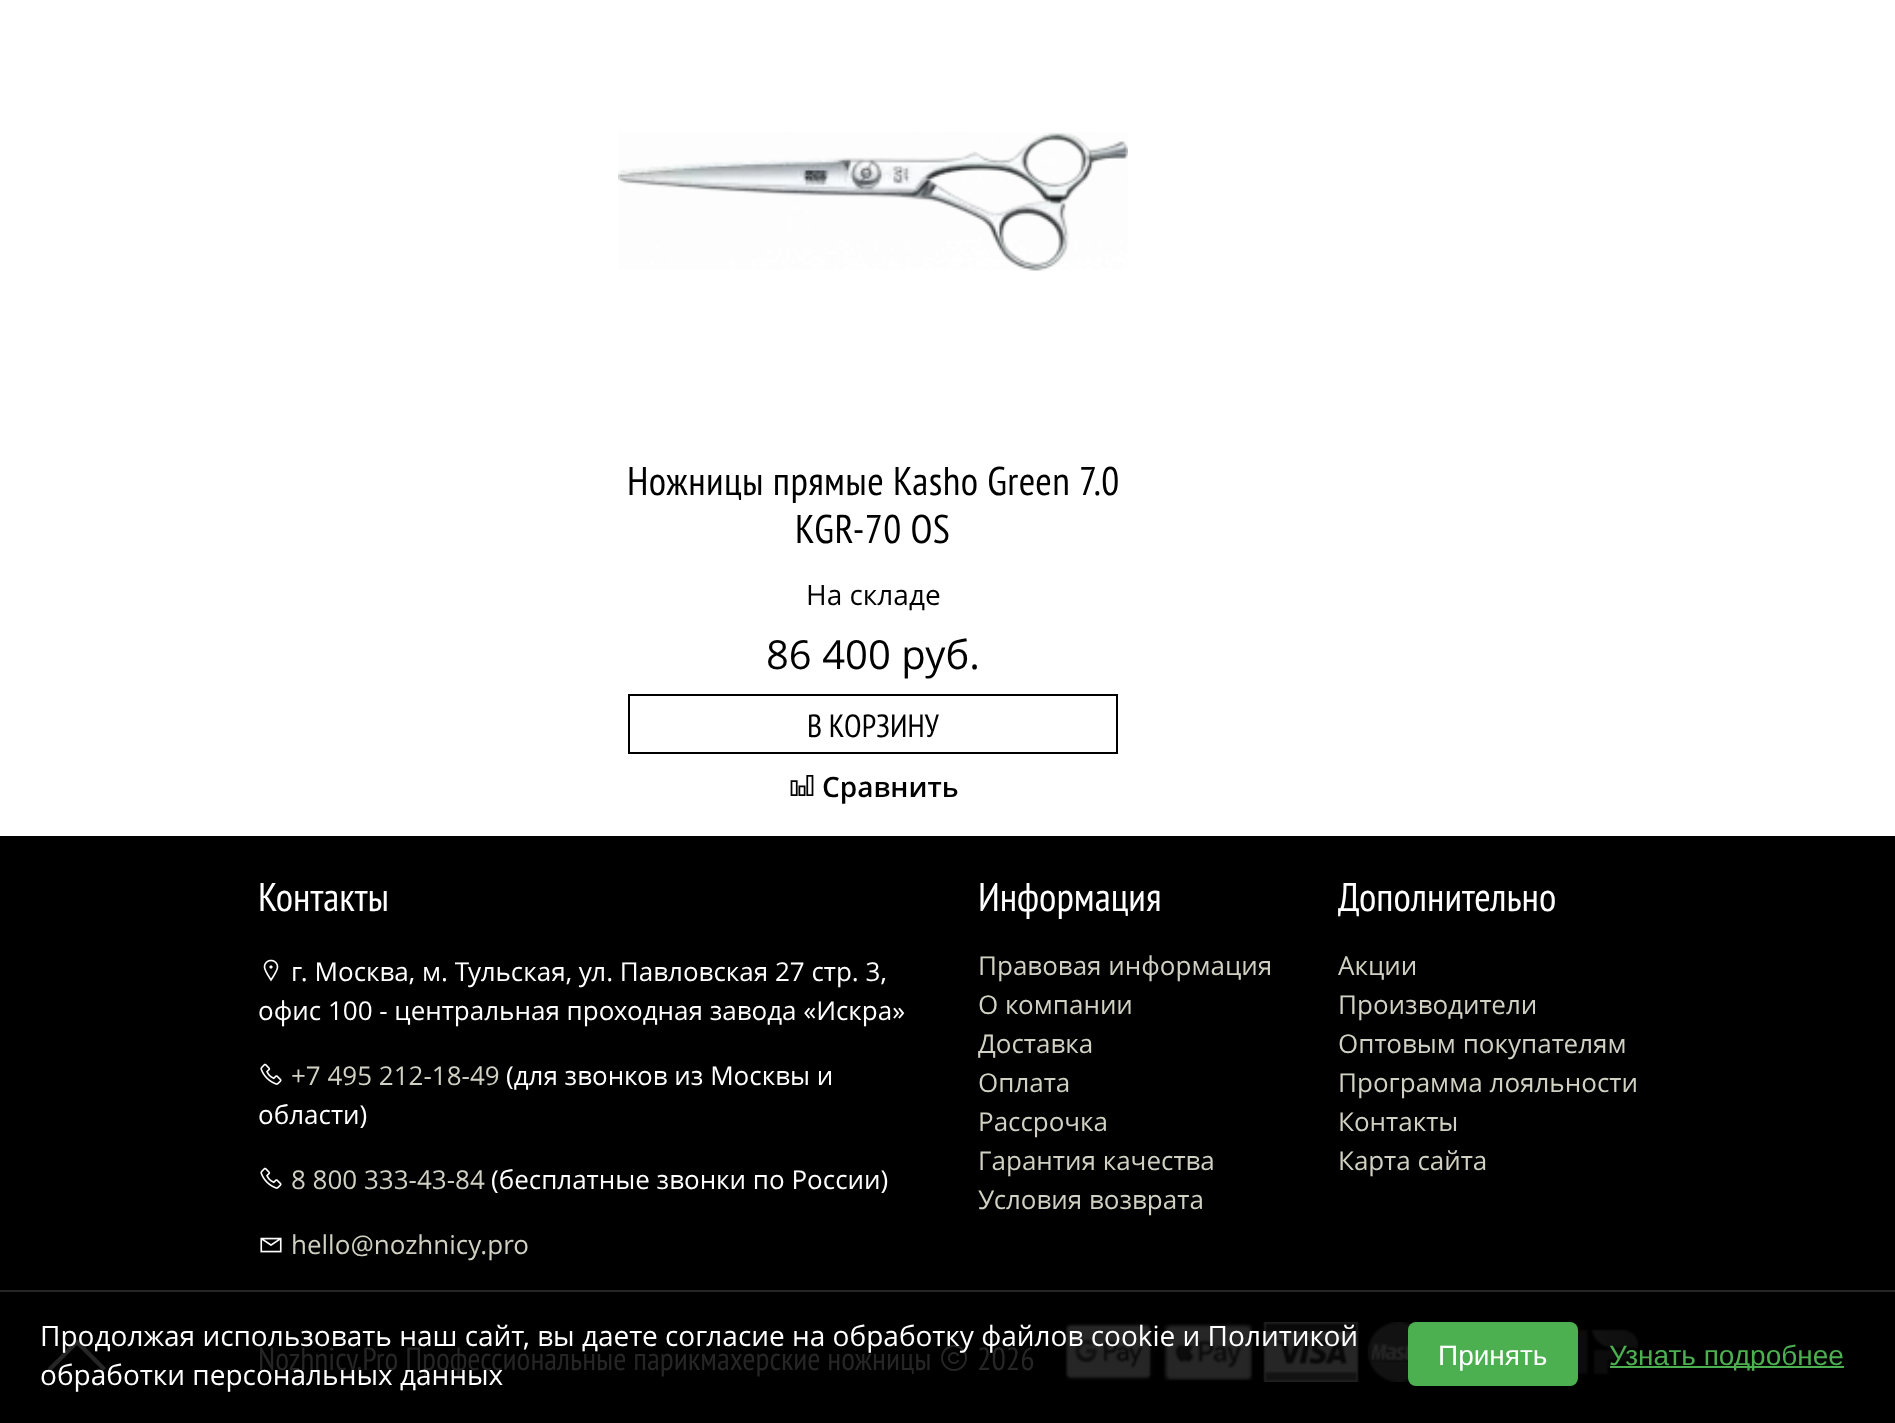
async function draw(canvas) {
  canvas.width = 1895
  canvas.height = 1423
  const ctx = canvas.getContext('2d')
  ctx.miterLimit = 4
  ctx.fontKerning = 'normal'
  async function loadImage(src) {
    const img = new Image()
    img.src = src
    await img.decode()
    return img
  }

  ctx.fillStyle = '#fff'
  ctx.fillRect(0, 0, 1895, 1423)
  ctx.drawImage(await loadImage('image0.png'), 618, 132, 510, 139)
  ctx.letterSpacing = '0.4px'
  ctx.font = '40px PT Sans Narrow'
  ctx.fillStyle = '#000'
  ctx.fillText('Ножницы прямые Kasho Green 7.0', 627, 495)
  ctx.fillText('KGR-70 OS', 795, 543)
  ctx.letterSpacing = '0px'
  ctx.font = '28px Open Sans'
  ctx.fillText('На складе', 806, 605)
  ctx.font = '40px Open Sans'
  ctx.fillText('86 400 руб.', 766, 669)
  ctx.strokeStyle = '#000'
  ctx.lineWidth = 2
  ctx.strokeRect(629, 695, 488, 58)
  ctx.font = '32px PT Sans Narrow'
  ctx.fillText('В КОРЗИНУ', 807, 737)
  ctx.drawImage(await loadImage('image1.png'), 790, 775, 24, 21)
  ctx.font = '600 28px Open Sans'
  ctx.fillText('Сравнить', 822, 797)
  ctx.fillRect(0, 836, 1895, 587)
  ctx.font = '40px PT Sans Narrow'
  ctx.fillStyle = '#fff'
  ctx.fillText('Контакты', 258, 911)
  ctx.drawImage(await loadImage('image2.png'), 263, 959, 16, 23)
  ctx.font = '26px Open Sans'
  ctx.fillText('г. Москва, м. Тульская, ул. Павловская 27 стр. 3,', 291, 981)
  ctx.fillText('офис 100 - центральная проходная завода «Искра»', 258, 1020)
  ctx.drawImage(await loadImage('image3.png'), 260, 1063, 22, 22)
  ctx.fillStyle = '#d0d0c3'
  ctx.fillText('+7 495 212-18-49', 291, 1085)
  ctx.fillStyle = '#fff'
  ctx.fillText('(для звонков из Москвы и', 506, 1085)
  ctx.fillText('области)', 258, 1124)
  ctx.drawImage(await loadImage('image3.png'), 260, 1167, 22, 22)
  ctx.fillStyle = '#d0d0c3'
  ctx.fillText('8 800 333-43-84', 291, 1189)
  ctx.fillStyle = '#fff'
  ctx.fillText('(бесплатные звонки по России)', 491, 1189)
  ctx.drawImage(await loadImage('image4.png'), 260, 1237, 22, 16)
  ctx.fillStyle = '#d0d0c3'
  ctx.fillText('hello@nozhnicy.pro', 291, 1254)
  ctx.font = '40px PT Sans Narrow'
  ctx.fillStyle = '#fff'
  ctx.fillText('Информация', 978, 911)
  ctx.font = '26px Open Sans'
  ctx.fillStyle = '#d0d0c3'
  ctx.fillText('Правовая информация', 978, 975)
  ctx.fillText('О компании', 978, 1014)
  ctx.fillText('Доставка', 978, 1053)
  ctx.fillText('Оплата', 978, 1092)
  ctx.fillText('Рассрочка', 978, 1131)
  ctx.fillText('Гарантия качества', 978, 1170)
  ctx.fillText('Условия возврата', 978, 1209)
  ctx.font = '40px PT Sans Narrow'
  ctx.fillStyle = '#fff'
  ctx.fillText('Дополнительно', 1338, 911)
  ctx.font = '26px Open Sans'
  ctx.fillStyle = '#d0d0c3'
  ctx.fillText('Акции', 1338, 975)
  ctx.fillText('Производители', 1338, 1014)
  ctx.fillText('Оптовым покупателям', 1338, 1053)
  ctx.fillText('Программа лояльности', 1338, 1092)
  ctx.fillText('Контакты', 1338, 1131)
  ctx.fillText('Карта сайта', 1338, 1170)
  ctx.fillStyle = '#262626'
  ctx.fillRect(0, 1290, 1895, 2)
  ctx.font = '32px PT Sans Narrow'
  ctx.fillText('Nozhnicy.Pro Профессиональные парикмахерские ножницы', 258, 1370)
  ctx.drawImage(await loadImage('image5.png'), 941, 1345, 26, 26)
  ctx.fillText('2026', 977, 1370)
  ctx.drawImage(await loadImage('image6.png'), 1065, 1322, 573, 60)
  ctx.beginPath()
  ctx.moveTo(77, 1339)
  ctx.lineTo(106, 1368)
  ctx.lineTo(103, 1371)
  ctx.lineTo(77, 1345)
  ctx.lineTo(51, 1371)
  ctx.lineTo(48, 1368)
  ctx.closePath()
  ctx.fill()
  ctx.font = '28px Open Sans'
  ctx.fillStyle = '#fff'
  ctx.fillText('Продолжая использовать наш сайт, вы даете согласие на обработку файлов cookie и Политикой', 40, 1346)
  ctx.fillText('обработки персональных данных', 40, 1385)
  ctx.fillStyle = '#4caf50'
  ctx.beginPath()
  ctx.roundRect(1408, 1322, 170, 64, 8)
  ctx.fill()
  ctx.font = '28px Liberation Sans'
  ctx.fillStyle = '#fff'
  ctx.fillText('Принять', 1438, 1365)
  ctx.fillStyle = '#4caf50'
  ctx.fillRect(1610, 1366, 234, 2)
  ctx.fillText('Узнать подробнее', 1609, 1365)
}

draw(document.querySelector('canvas'))
